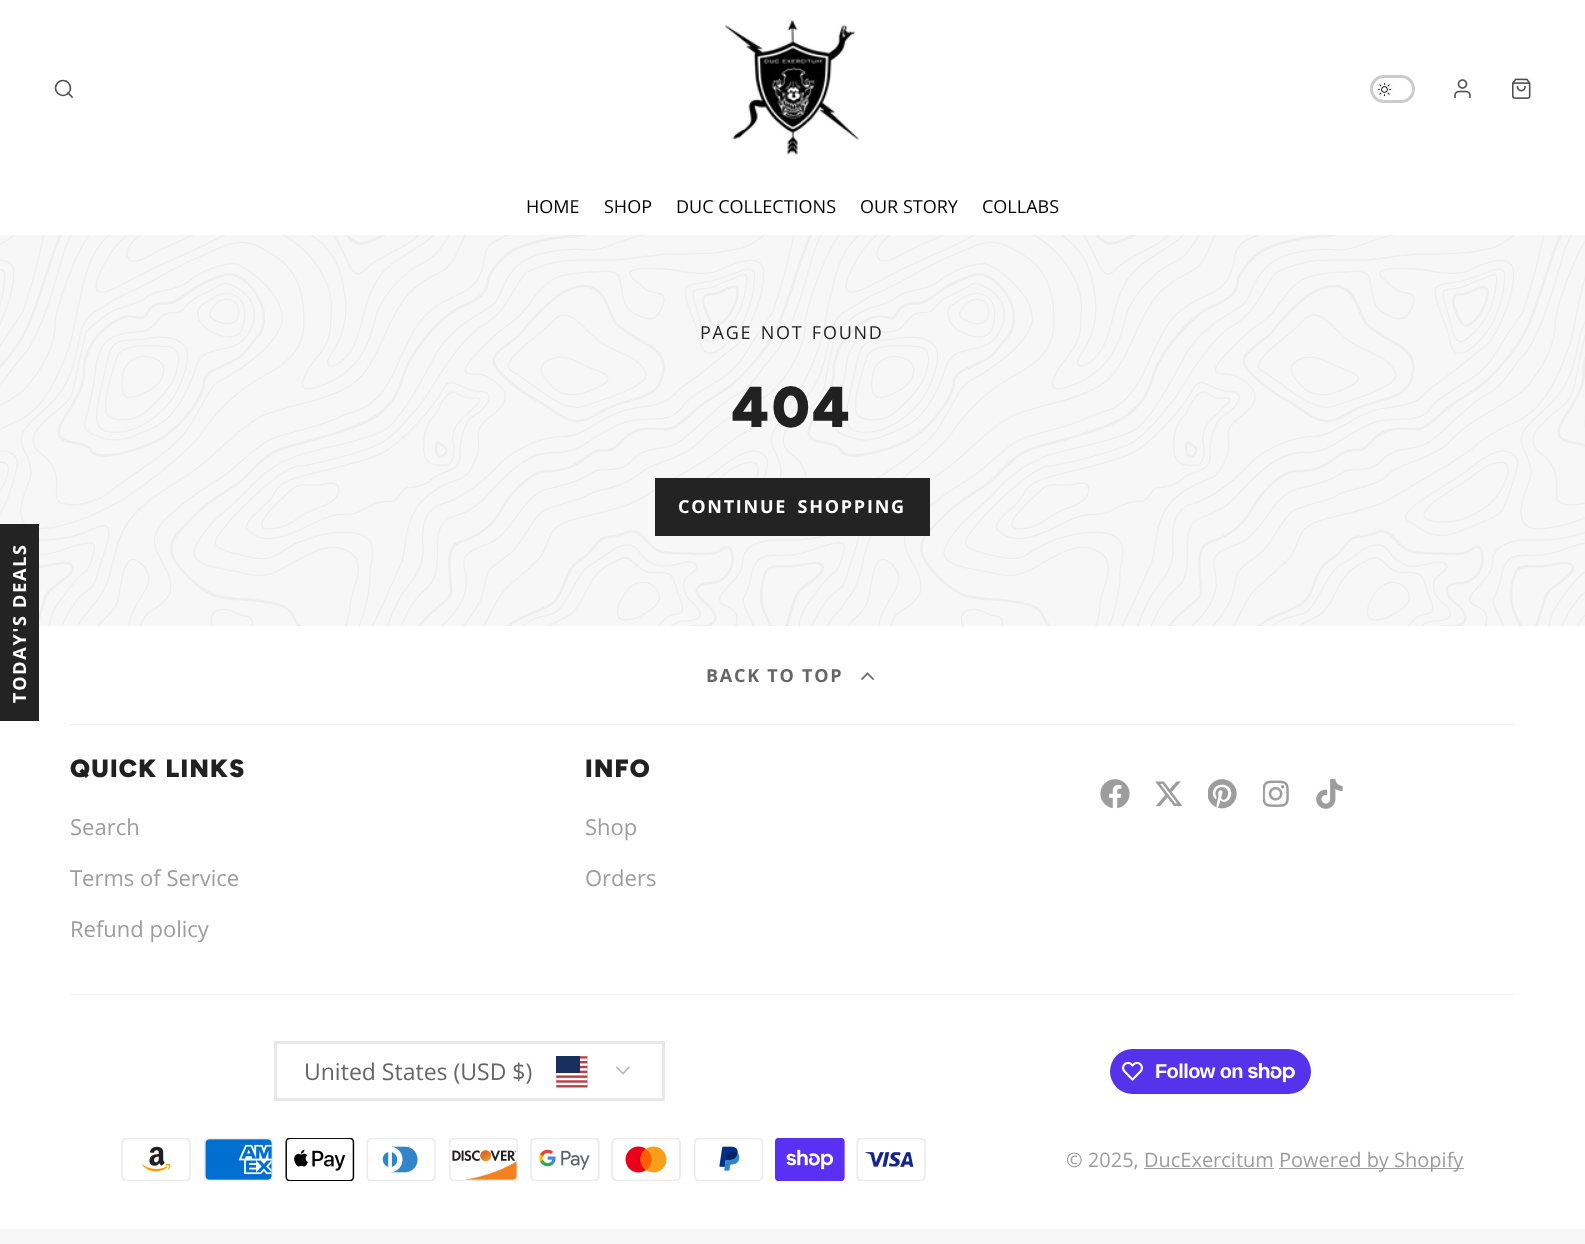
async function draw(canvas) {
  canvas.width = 1585
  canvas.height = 1244
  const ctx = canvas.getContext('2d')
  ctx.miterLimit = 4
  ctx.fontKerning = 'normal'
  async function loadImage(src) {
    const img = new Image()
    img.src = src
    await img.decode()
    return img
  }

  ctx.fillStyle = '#f7f7f7'
  ctx.fillRect(0, 0, 1585, 1244)
  ctx.fillStyle = '#fff'
  ctx.fillRect(0, 0, 1585, 235)
  ctx.beginPath()
  ctx.arc(63, 88, 7.5, 0, 2 * Math.PI)
  ctx.strokeStyle = '#505050'
  ctx.lineWidth = 1.6
  ctx.stroke()
  ctx.beginPath()
  ctx.moveTo(72, 97)
  ctx.lineTo(68, 93)
  ctx.lineCap = 'square'
  ctx.stroke()
  ctx.drawImage(await loadImage('image0.png'), 725, 20, 134, 135)
  ctx.beginPath()
  ctx.roundRect(1371.5, 76.5, 42, 25, 12.5)
  ctx.strokeStyle = '#ccc'
  ctx.lineWidth = 3
  ctx.stroke()
  ctx.fillStyle = '#f7f7f7'
  ctx.beginPath()
  ctx.arc(1384, 89, 9, 0, 2 * Math.PI)
  ctx.fill()
  ctx.drawImage(await loadImage('image1.png'), 1378, 83, 13, 13)
  ctx.drawImage(await loadImage('image2.png'), 1454, 79, 17, 19)
  ctx.drawImage(await loadImage('image3.png'), 1512, 78, 19, 21)
  ctx.font = '18px Open Sans'
  ctx.fillStyle = '#000'
  ctx.fillText('HOME', 526, 213)
  ctx.fillText('SHOP', 604, 213)
  ctx.fillText('DUC COLLECTIONS', 676, 213)
  ctx.fillText('OUR STORY', 860, 213)
  ctx.fillText('COLLABS', 982, 213)
  ctx.drawImage(await loadImage('image22.png'), 0, 235, 1585, 391)
  ctx.letterSpacing = '1.75px'
  ctx.wordSpacing = '2px'
  ctx.fillStyle = '#212121'
  ctx.fillText('PAGE NOT FOUND', 700, 339)
  ctx.letterSpacing = '3px'
  ctx.wordSpacing = '0px'
  ctx.font = '900 57.5px Figtree'
  ctx.fillText('404', 732, 427)
  ctx.fillStyle = '#232323'
  ctx.fillRect(655, 478, 275, 58)
  ctx.letterSpacing = '1.75px'
  ctx.wordSpacing = '4px'
  ctx.font = 'bold 18px Open Sans'
  ctx.fillStyle = '#fff'
  ctx.fillText('CONTINUE SHOPPING', 678, 513)
  ctx.fillRect(0, 626, 1585, 603)
  ctx.fillStyle = '#232323'
  ctx.fillRect(0, 524, 39, 197)
  ctx.wordSpacing = '0px'
  ctx.fillStyle = '#fff'
  ctx.save()
  ctx.translate(26, 703)
  ctx.rotate(-90 * Math.PI / 180)
  ctx.fillText('TODAY\'S DEALS', 0, 0)
  ctx.restore()
  ctx.fillStyle = '#666'
  ctx.fillText('BACK TO TOP', 706, 682)
  ctx.beginPath()
  ctx.moveTo(873, 679)
  ctx.lineTo(867.5, 673.5)
  ctx.lineTo(862, 679)
  ctx.strokeStyle = '#666'
  ctx.lineWidth = 1.6
  ctx.stroke()
  ctx.fillStyle = '#f0f0f0'
  ctx.fillRect(70, 724, 1445, 1)
  ctx.letterSpacing = '1.25px'
  ctx.wordSpacing = '1px'
  ctx.font = '900 25px Figtree'
  ctx.fillStyle = '#212121'
  ctx.fillText('QUICK LINKS', 70, 777)
  ctx.letterSpacing = '0px'
  ctx.wordSpacing = '0px'
  ctx.font = '22px Open Sans'
  ctx.fillStyle = '#9d9d9d'
  ctx.fillText('Search', 70, 835)
  ctx.fillText('Terms of Service', 70, 886)
  ctx.fillText('Refund policy', 70, 937)
  ctx.letterSpacing = '1.25px'
  ctx.font = '900 25px Figtree'
  ctx.fillStyle = '#212121'
  ctx.fillText('INFO', 585, 777)
  ctx.letterSpacing = '0px'
  ctx.font = '22px Open Sans'
  ctx.fillStyle = '#9d9d9d'
  ctx.fillText('Shop', 585, 835)
  ctx.fillText('Orders', 585, 886)
  ctx.drawImage(await loadImage('image4.png'), 1100, 779, 30, 30)
  ctx.drawImage(await loadImage('image5.png'), 1155, 781, 28, 25)
  ctx.drawImage(await loadImage('image6.png'), 1208, 779, 29, 30)
  ctx.drawImage(await loadImage('image7.png'), 1263, 780, 26, 27)
  ctx.drawImage(await loadImage('image8.png'), 1316, 779, 27, 30)
  ctx.fillStyle = '#f0f0f0'
  ctx.fillRect(70, 994, 1445, 1)
  ctx.strokeStyle = '#e8e8e8'
  ctx.lineWidth = 3
  ctx.strokeRect(275.5, 1042.5, 388, 57)
  ctx.font = '23px Open Sans'
  ctx.fillStyle = '#666'
  ctx.fillText('United States (USD $)', 304, 1080)
  ctx.drawImage(await loadImage('image9.png'), 556, 1056, 32, 32)
  ctx.beginPath()
  ctx.moveTo(617, 1067.5)
  ctx.lineTo(623, 1073.5)
  ctx.lineTo(629, 1067.5)
  ctx.strokeStyle = '#b9b9b9'
  ctx.lineWidth = 1.7
  ctx.stroke()
  ctx.fillStyle = '#5433eb'
  ctx.beginPath()
  ctx.roundRect(1110, 1049, 201, 45, 22.5)
  ctx.fill()
  ctx.drawImage(await loadImage('image10.png'), 1122, 1061, 21, 20)
  ctx.letterSpacing = '-0.6px'
  ctx.font = 'bold 20px Liberation Sans'
  ctx.fillStyle = '#fff'
  ctx.fillText('Follow on', 1155, 1078)
  ctx.drawImage(await loadImage('image11.png'), 1248, 1063, 47, 20)
  ctx.drawImage(await loadImage('image12.png'), 121, 1138, 70, 43)
  ctx.drawImage(await loadImage('image13.png'), 204, 1138, 69, 43)
  ctx.drawImage(await loadImage('image14.png'), 285, 1138, 70, 43)
  ctx.drawImage(await loadImage('image15.png'), 366, 1138, 70, 43)
  ctx.drawImage(await loadImage('image16.png'), 449, 1138, 69, 43)
  ctx.drawImage(await loadImage('image17.png'), 530, 1138, 70, 43)
  ctx.drawImage(await loadImage('image18.png'), 611, 1138, 70, 43)
  ctx.drawImage(await loadImage('image19.png'), 694, 1138, 69, 43)
  ctx.drawImage(await loadImage('image20.png'), 775, 1138, 70, 43)
  ctx.drawImage(await loadImage('image21.png'), 856, 1138, 70, 43)
  ctx.letterSpacing = '0px'
  ctx.font = '20px Open Sans'
  ctx.fillStyle = '#9d9d9d'
  ctx.fillText('© 2025, DucExercitum', 1066, 1167)
  ctx.fillRect(1279, 1168, 185, 1)
  ctx.fillText('Powered by Shopify', 1279, 1167)
  ctx.fillRect(1144, 1168, 130, 1)
}

draw(document.querySelector('canvas'))
